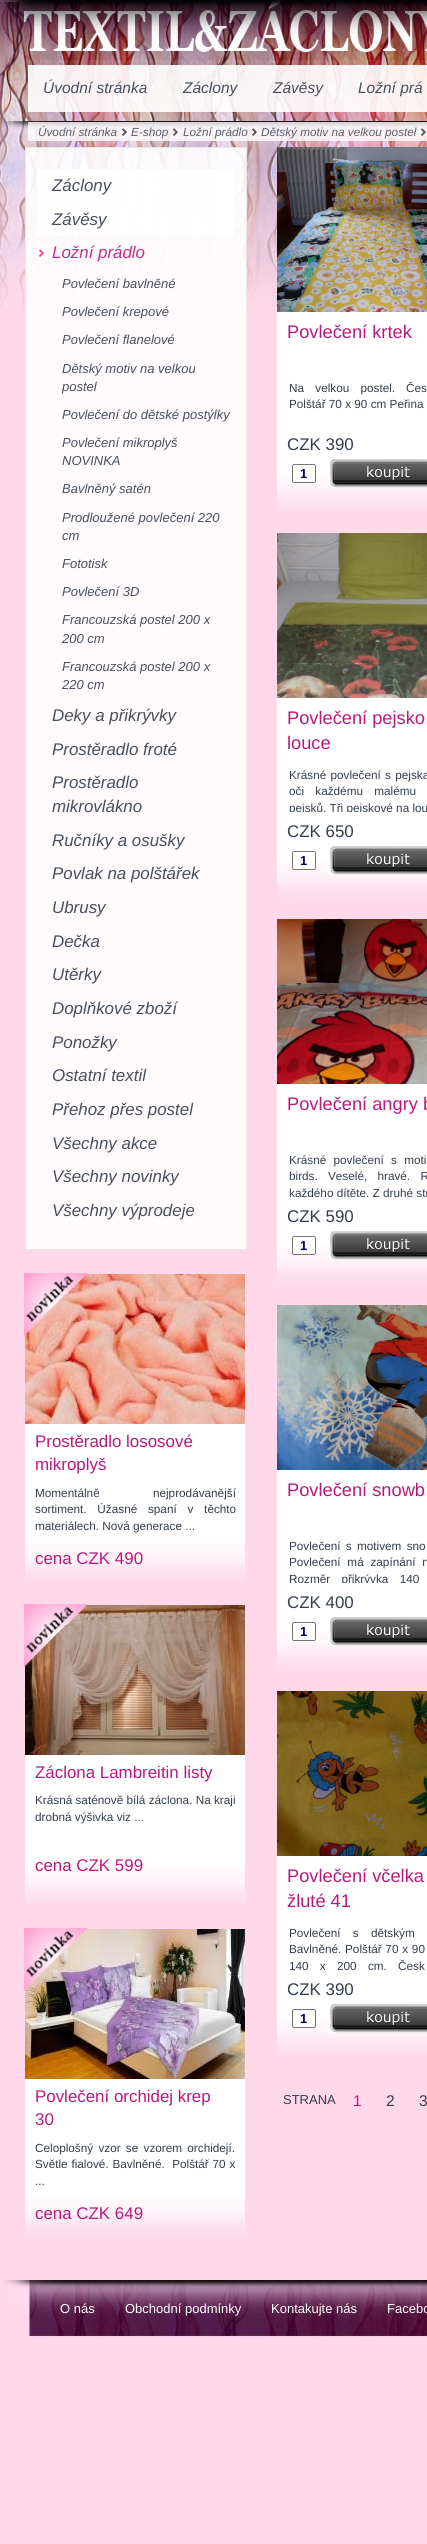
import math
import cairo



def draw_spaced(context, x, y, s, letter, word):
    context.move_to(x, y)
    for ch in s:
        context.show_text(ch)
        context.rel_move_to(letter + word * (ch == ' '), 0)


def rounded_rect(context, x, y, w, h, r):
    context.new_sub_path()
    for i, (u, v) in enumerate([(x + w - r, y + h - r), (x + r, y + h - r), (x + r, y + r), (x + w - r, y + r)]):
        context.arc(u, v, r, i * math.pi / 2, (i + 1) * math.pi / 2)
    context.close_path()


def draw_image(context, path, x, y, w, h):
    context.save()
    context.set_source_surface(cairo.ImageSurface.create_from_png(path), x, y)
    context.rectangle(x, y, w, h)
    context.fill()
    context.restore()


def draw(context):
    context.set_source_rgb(1, 216 / 255, 234 / 255)
    context.paint()
    draw_image(context, "images/1.png", 0, 312, 277, 1)
    draw_image(context, "images/2.png", 0, 122, 427, 190)
    draw_image(context, "images/3.png", 0, 0, 427, 122)
    draw_image(context, "images/4.png", 24, 0, 403, 60)
    context.set_source_rgba(1, 1, 1, 0.9)
    context.rectangle(28, 65, 399, 47)
    context.fill()
    context.set_source_rgba(1, 1, 1, 0.8)
    context.rectangle(28, 122, 399, 19)
    context.fill()
    draw_image(context, "images/5.png", 122, 128, 5, 8)
    draw_image(context, "images/6.png", 173, 128, 5, 8)
    draw_image(context, "images/7.png", 252, 128, 5, 8)
    draw_image(context, "images/8.png", 421, 128, 5, 8)
    context.set_source_rgb(1, 1, 1)
    context.rectangle(277, 312, 150, 162)
    context.fill()
    draw_image(context, "images/9.png", 277, 474, 150, 38)
    draw_image(context, "images/10.png", 277, 147, 150, 165)
    rounded_rect(context, 292.5, 464.5, 23, 18, 1.5)
    context.fill_preserve()
    context.set_source_rgb(118 / 255, 118 / 255, 118 / 255)
    context.set_line_width(1)
    context.stroke()
    context.set_source_rgb(1, 1, 1)
    context.rectangle(329, 474, 98, 14)
    context.fill()
    draw_image(context, "images/11.png", 330, 459, 97, 29)
    context.rectangle(277, 698, 150, 162)
    context.fill()
    draw_image(context, "images/9.png", 277, 860, 150, 38)
    draw_image(context, "images/12.png", 277, 533, 150, 165)
    rounded_rect(context, 292.5, 851.5, 23, 18, 1.5)
    context.fill_preserve()
    context.set_source_rgb(118 / 255, 118 / 255, 118 / 255)
    context.stroke()
    context.set_source_rgb(1, 1, 1)
    context.rectangle(329, 860, 98, 15)
    context.fill()
    draw_image(context, "images/11.png", 330, 846, 97, 29)
    context.rectangle(277, 1084, 150, 162)
    context.fill()
    draw_image(context, "images/9.png", 277, 1246, 150, 38)
    draw_image(context, "images/13.png", 277, 919, 150, 165)
    rounded_rect(context, 292.5, 1236.5, 23, 18, 1.5)
    context.fill_preserve()
    context.set_source_rgb(118 / 255, 118 / 255, 118 / 255)
    context.stroke()
    context.set_source_rgb(1, 1, 1)
    context.rectangle(329, 1246, 98, 14)
    context.fill()
    draw_image(context, "images/11.png", 330, 1231, 97, 29)
    context.rectangle(277, 1470, 150, 162)
    context.fill()
    draw_image(context, "images/9.png", 277, 1632, 150, 38)
    draw_image(context, "images/14.png", 277, 1305, 150, 165)
    rounded_rect(context, 292.5, 1622.5, 23, 18, 1.5)
    context.fill_preserve()
    context.set_source_rgb(118 / 255, 118 / 255, 118 / 255)
    context.stroke()
    context.set_source_rgb(1, 1, 1)
    context.rectangle(329, 1632, 98, 14)
    context.fill()
    draw_image(context, "images/11.png", 330, 1617, 97, 29)
    context.rectangle(277, 1856, 150, 162)
    context.fill()
    draw_image(context, "images/9.png", 277, 2018, 150, 38)
    draw_image(context, "images/15.png", 277, 1691, 150, 165)
    rounded_rect(context, 292.5, 2009.5, 23, 18, 1.5)
    context.fill_preserve()
    context.set_source_rgb(118 / 255, 118 / 255, 118 / 255)
    context.stroke()
    context.set_source_rgb(1, 1, 1)
    context.rectangle(329, 2018, 98, 15)
    context.fill()
    draw_image(context, "images/11.png", 330, 2004, 97, 29)
    context.set_source_rgba(1, 1, 1, 0.9)
    context.rectangle(25, 147, 222, 1103)
    context.fill()
    context.rectangle(25.5, 147.5, 221, 1102)
    context.set_source_rgba(233 / 255, 229 / 255, 225 / 255, 0.9)
    context.stroke()
    context.set_source_rgba(1, 1, 1, 0.9)
    context.rectangle(37, 169, 198, 34)
    context.fill()
    context.rectangle(37, 203, 198, 33)
    context.fill()
    draw_image(context, "images/16.png", 37, 247, 11, 12)
    context.set_source_rgb(1, 1, 1)
    context.rectangle(25, 1424, 220, 119)
    context.fill()
    draw_image(context, "images/17.png", 25, 1543, 220, 38)
    draw_image(context, "images/20.png", 25, 1274, 220, 150)
    draw_image(context, "images/18.png", 24, 1273, 64, 63)
    draw_image(context, "images/19.png", 24, 1273, 64, 63)
    context.rectangle(25, 1755, 220, 112)
    context.fill()
    draw_image(context, "images/17.png", 25, 1867, 220, 38)
    draw_image(context, "images/23.png", 25, 1605, 220, 150)
    draw_image(context, "images/21.png", 24, 1604, 64, 63)
    draw_image(context, "images/22.png", 24, 1604, 64, 63)
    context.rectangle(25, 2079, 220, 119)
    context.fill()
    draw_image(context, "images/17.png", 25, 2198, 220, 38)
    draw_image(context, "images/26.png", 25, 1929, 220, 150)
    draw_image(context, "images/24.png", 24, 1928, 64, 63)
    draw_image(context, "images/25.png", 24, 1928, 64, 63)
    draw_image(context, "images/27.png", 3, 2280, 424, 59)
    context.select_font_face("Liberation Sans", cairo.FontSlant.ITALIC)
    context.set_font_size(15.5)
    context.set_source_rgb(72 / 255, 80 / 255, 94 / 255)
    context.move_to(43, 93)
    context.show_text("Úvodní stránka")
    context.move_to(183, 93)
    context.show_text("Záclony")
    context.move_to(273, 93)
    context.show_text("Závěsy")
    context.move_to(358, 93)
    context.show_text("Ložní prá")
    context.set_font_size(11.75)
    context.set_source_rgb(91 / 255, 97 / 255, 110 / 255)
    context.move_to(38, 136)
    context.show_text("Úvodní stránka")
    context.move_to(131, 136)
    context.show_text("E-shop")
    context.move_to(183, 136)
    context.show_text("Ložní prádlo")
    context.move_to(261, 136)
    context.show_text("Dětský motiv na velkou postel")
    context.select_font_face("Liberation Sans")
    context.set_font_size(18.25)
    context.set_source_rgb(185 / 255, 25 / 255, 126 / 255)
    context.move_to(287, 338)
    context.show_text("Povlečení krtek")
    context.set_font_size(11.75)
    context.set_source_rgb(52 / 255, 61 / 255, 76 / 255)
    draw_spaced(context, 289, 392, "Na velkou postel.", 0, 8)
    draw_spaced(context, 406, 392, "Čes", 0, 8)
    context.move_to(289, 408)
    context.show_text("Polštář 70 x 90 cm Peřina")
    context.set_font_size(16.9)
    context.move_to(287, 450)
    context.show_text("CZK 390")
    context.select_font_face("Liberation Sans", cairo.FontSlant.NORMAL, cairo.FontWeight.BOLD)
    context.set_font_size(13)
    context.set_source_rgb(0, 0, 102 / 255)
    context.move_to(300, 478)
    context.show_text("1")
    context.select_font_face("Liberation Sans")
    context.set_font_size(18.25)
    context.set_source_rgb(185 / 255, 25 / 255, 126 / 255)
    context.move_to(287, 724)
    context.show_text("Povlečení pejsko")
    context.move_to(287, 749)
    context.show_text("louce")
    context.set_font_size(11.75)
    context.set_source_rgb(52 / 255, 61 / 255, 76 / 255)
    draw_spaced(context, 289, 779, "Krásné povlečení s pejska", 0, 1)
    draw_spaced(context, 289, 795, "oči každému malému", 0, 8)
    context.save()
    context.rectangle(282, 767, 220, 45)
    context.clip()
    context.move_to(289, 812)
    context.show_text("pejsků. Tři pejskové na lou")
    context.restore()
    context.set_font_size(16.9)
    context.move_to(287, 837)
    context.show_text("CZK 650")
    context.select_font_face("Liberation Sans", cairo.FontSlant.NORMAL, cairo.FontWeight.BOLD)
    context.set_font_size(13)
    context.set_source_rgb(0, 0, 102 / 255)
    context.move_to(300, 865)
    context.show_text("1")
    context.select_font_face("Liberation Sans")
    context.set_font_size(18.25)
    context.set_source_rgb(185 / 255, 25 / 255, 126 / 255)
    context.move_to(287, 1110)
    context.show_text("Povlečení angry b")
    context.set_font_size(11.75)
    context.set_source_rgb(52 / 255, 61 / 255, 76 / 255)
    draw_spaced(context, 289, 1164, "Krásné povlečení s moti", 0, 4)
    draw_spaced(context, 289, 1180, "birds. Veselé, hravé. R", 0, 7)
    context.save()
    context.rectangle(282, 1152, 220, 45)
    context.clip()
    context.move_to(289, 1197)
    context.show_text("každého dítěte. Z druhé str")
    context.restore()
    context.set_font_size(16.9)
    context.move_to(287, 1222)
    context.show_text("CZK 590")
    context.select_font_face("Liberation Sans", cairo.FontSlant.NORMAL, cairo.FontWeight.BOLD)
    context.set_font_size(13)
    context.set_source_rgb(0, 0, 102 / 255)
    context.move_to(300, 1250)
    context.show_text("1")
    context.select_font_face("Liberation Sans")
    context.set_font_size(18.25)
    context.set_source_rgb(185 / 255, 25 / 255, 126 / 255)
    context.move_to(287, 1496)
    context.show_text("Povlečení snowb")
    context.set_font_size(11.75)
    context.set_source_rgb(52 / 255, 61 / 255, 76 / 255)
    draw_spaced(context, 289, 1550, "Povlečení s motivem sno", 0, 2)
    draw_spaced(context, 289, 1566, "Povlečení má zapínání n", 0, 3.5)
    context.save()
    context.rectangle(282, 1538, 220, 45)
    context.clip()
    draw_spaced(context, 289, 1583, "Rozměr přikrývka 140", 0, 8)
    context.restore()
    context.set_font_size(16.9)
    context.move_to(287, 1608)
    context.show_text("CZK 400")
    context.select_font_face("Liberation Sans", cairo.FontSlant.NORMAL, cairo.FontWeight.BOLD)
    context.set_font_size(13)
    context.set_source_rgb(0, 0, 102 / 255)
    context.move_to(300, 1636)
    context.show_text("1")
    context.select_font_face("Liberation Sans")
    context.set_font_size(18.25)
    context.set_source_rgb(185 / 255, 25 / 255, 126 / 255)
    context.move_to(287, 1882)
    context.show_text("Povlečení včelka")
    context.move_to(287, 1907)
    context.show_text("žluté 41")
    context.set_font_size(11.75)
    context.set_source_rgb(52 / 255, 61 / 255, 76 / 255)
    draw_spaced(context, 289, 1937, "Povlečení s dětským", 0, 9)
    draw_spaced(context, 289, 1953, "Bavlněné. Polštář 70 x 90", 0, 0.5)
    draw_spaced(context, 289, 1970, "140 x 200 cm. Česk", 0, 8)
    context.set_font_size(16.9)
    context.move_to(287, 1995)
    context.show_text("CZK 390")
    context.select_font_face("Liberation Sans", cairo.FontSlant.NORMAL, cairo.FontWeight.BOLD)
    context.set_font_size(13)
    context.set_source_rgb(0, 0, 102 / 255)
    context.move_to(300, 2023)
    context.show_text("1")
    context.select_font_face("Liberation Sans")
    context.set_source_rgb(52 / 255, 61 / 255, 76 / 255)
    context.move_to(283, 2104)
    context.show_text("STRANA")
    context.set_font_size(15.5)
    context.set_source_rgb(185 / 255, 25 / 255, 126 / 255)
    context.move_to(353, 2106)
    context.show_text("1")
    context.set_source_rgb(52 / 255, 61 / 255, 76 / 255)
    context.move_to(386, 2106)
    context.show_text("2")
    context.move_to(419, 2106)
    context.show_text("3")
    context.select_font_face("Liberation Sans", cairo.FontSlant.ITALIC)
    context.set_font_size(16.9)
    context.set_source_rgb(72 / 255, 80 / 255, 94 / 255)
    context.move_to(52, 191)
    context.show_text("Záclony")
    context.move_to(52, 225)
    context.show_text("Závěsy")
    context.set_source_rgb(192 / 255, 47 / 255, 139 / 255)
    context.move_to(52, 258)
    context.show_text("Ložní prádlo")
    context.set_font_size(13)
    context.set_source_rgb(72 / 255, 80 / 255, 94 / 255)
    context.move_to(62, 288)
    context.show_text("Povlečení bavlněné")
    context.move_to(62, 316)
    context.show_text("Povlečení krepové")
    context.move_to(62, 344)
    context.show_text("Povlečení flanelové")
    context.move_to(62, 373)
    context.show_text("Dětský motiv na velkou")
    context.move_to(62, 391)
    context.show_text("postel")
    context.move_to(62, 419)
    context.show_text("Povlečení do dětské postýlky")
    context.move_to(62, 447)
    context.show_text("Povlečení mikroplyš")
    context.move_to(62, 465)
    context.show_text("NOVINKA")
    context.move_to(62, 493)
    context.show_text("Bavlněný satén")
    context.move_to(62, 522)
    context.show_text("Prodloužené povlečení 220")
    context.move_to(62, 540)
    context.show_text("cm")
    context.move_to(62, 568)
    context.show_text("Fototisk")
    context.move_to(62, 596)
    context.show_text("Povlečení 3D")
    context.move_to(62, 624)
    context.show_text("Francouzská postel 200 x")
    context.move_to(62, 643)
    context.show_text("200 cm")
    context.move_to(62, 671)
    context.show_text("Francouzská postel 200 x")
    context.move_to(62, 689)
    context.show_text("220 cm")
    context.set_font_size(16.9)
    context.move_to(52, 721)
    context.show_text("Deky a přikrývky")
    context.move_to(52, 755)
    context.show_text("Prostěradlo froté")
    context.move_to(52, 788)
    context.show_text("Prostěradlo")
    context.move_to(52, 812)
    context.show_text("mikrovlákno")
    context.move_to(52, 846)
    context.show_text("Ručníky a osušky")
    context.move_to(52, 879)
    context.show_text("Povlak na polštářek")
    context.move_to(52, 913)
    context.show_text("Ubrusy")
    context.move_to(52, 947)
    context.show_text("Dečka")
    context.move_to(52, 980)
    context.show_text("Utěrky")
    context.move_to(52, 1014)
    context.show_text("Doplňkové zboží")
    context.move_to(52, 1048)
    context.show_text("Ponožky")
    context.move_to(52, 1081)
    context.show_text("Ostatní textil")
    context.move_to(52, 1115)
    context.show_text("Přehoz přes postel")
    context.move_to(52, 1149)
    context.show_text("Všechny akce")
    context.move_to(52, 1182)
    context.show_text("Všechny novinky")
    context.move_to(52, 1216)
    context.show_text("Všechny výprodeje")
    context.select_font_face("Liberation Sans")
    context.set_source_rgb(185 / 255, 25 / 255, 126 / 255)
    context.move_to(35, 1447)
    context.show_text("Prostěradlo lososové")
    context.move_to(35, 1470)
    context.show_text("mikroplyš")
    context.set_font_size(11.75)
    context.set_source_rgb(52 / 255, 61 / 255, 76 / 255)
    draw_spaced(context, 35, 1497, "Momentálně nejprodávanější", 0, 50)
    draw_spaced(context, 35, 1513, "sortiment. Úžasné spaní v těchto", 0, 7.5)
    context.move_to(35, 1530)
    context.show_text("materiálech. Nová generace ...")
    context.set_font_size(16.9)
    context.set_source_rgb(185 / 255, 25 / 255, 126 / 255)
    context.move_to(35, 1564)
    context.show_text("cena CZK 490")
    context.move_to(35, 1778)
    context.show_text("Záclona Lambreitin listy")
    context.set_font_size(11.75)
    context.set_source_rgb(52 / 255, 61 / 255, 76 / 255)
    context.move_to(35, 1804)
    context.show_text("Krásná saténově bílá záclona. Na kraji")
    context.move_to(35, 1821)
    context.show_text("drobná výšivka viz ...")
    context.set_font_size(16.9)
    context.set_source_rgb(185 / 255, 25 / 255, 126 / 255)
    context.move_to(35, 1871)
    context.show_text("cena CZK 599")
    context.move_to(35, 2102)
    context.show_text("Povlečení orchidej krep")
    context.move_to(35, 2125)
    context.show_text("30")
    context.set_font_size(11.75)
    context.set_source_rgb(52 / 255, 61 / 255, 76 / 255)
    draw_spaced(context, 35, 2152, "Celoplošný vzor se vzorem orchidejí.", 0, 2)
    draw_spaced(context, 35, 2168, "Světle fialové. Bavlněné.  Polštář 70 x", 0, 0.5)
    context.move_to(35, 2185)
    context.show_text("...")
    context.set_font_size(16.9)
    context.set_source_rgb(185 / 255, 25 / 255, 126 / 255)
    context.move_to(35, 2219)
    context.show_text("cena CZK 649")
    context.set_font_size(13)
    context.set_source_rgb(1, 1, 1)
    context.move_to(60, 2313)
    context.show_text("O nás")
    context.move_to(125, 2313)
    context.show_text("Obchodní podmínky")
    context.move_to(271, 2313)
    context.show_text("Kontakujte nás")
    context.move_to(387, 2313)
    context.show_text("Facebo")


surface = cairo.ImageSurface(cairo.Format.RGB24, 427, 2544)
context = cairo.Context(surface)
options = cairo.FontOptions()
options.set_hint_metrics(cairo.HintMetrics.OFF)
options.set_hint_style(cairo.HintStyle.NONE)
context.set_font_options(options)
context.set_miter_limit(4)
draw(context)
surface.write_to_png("out.png")
